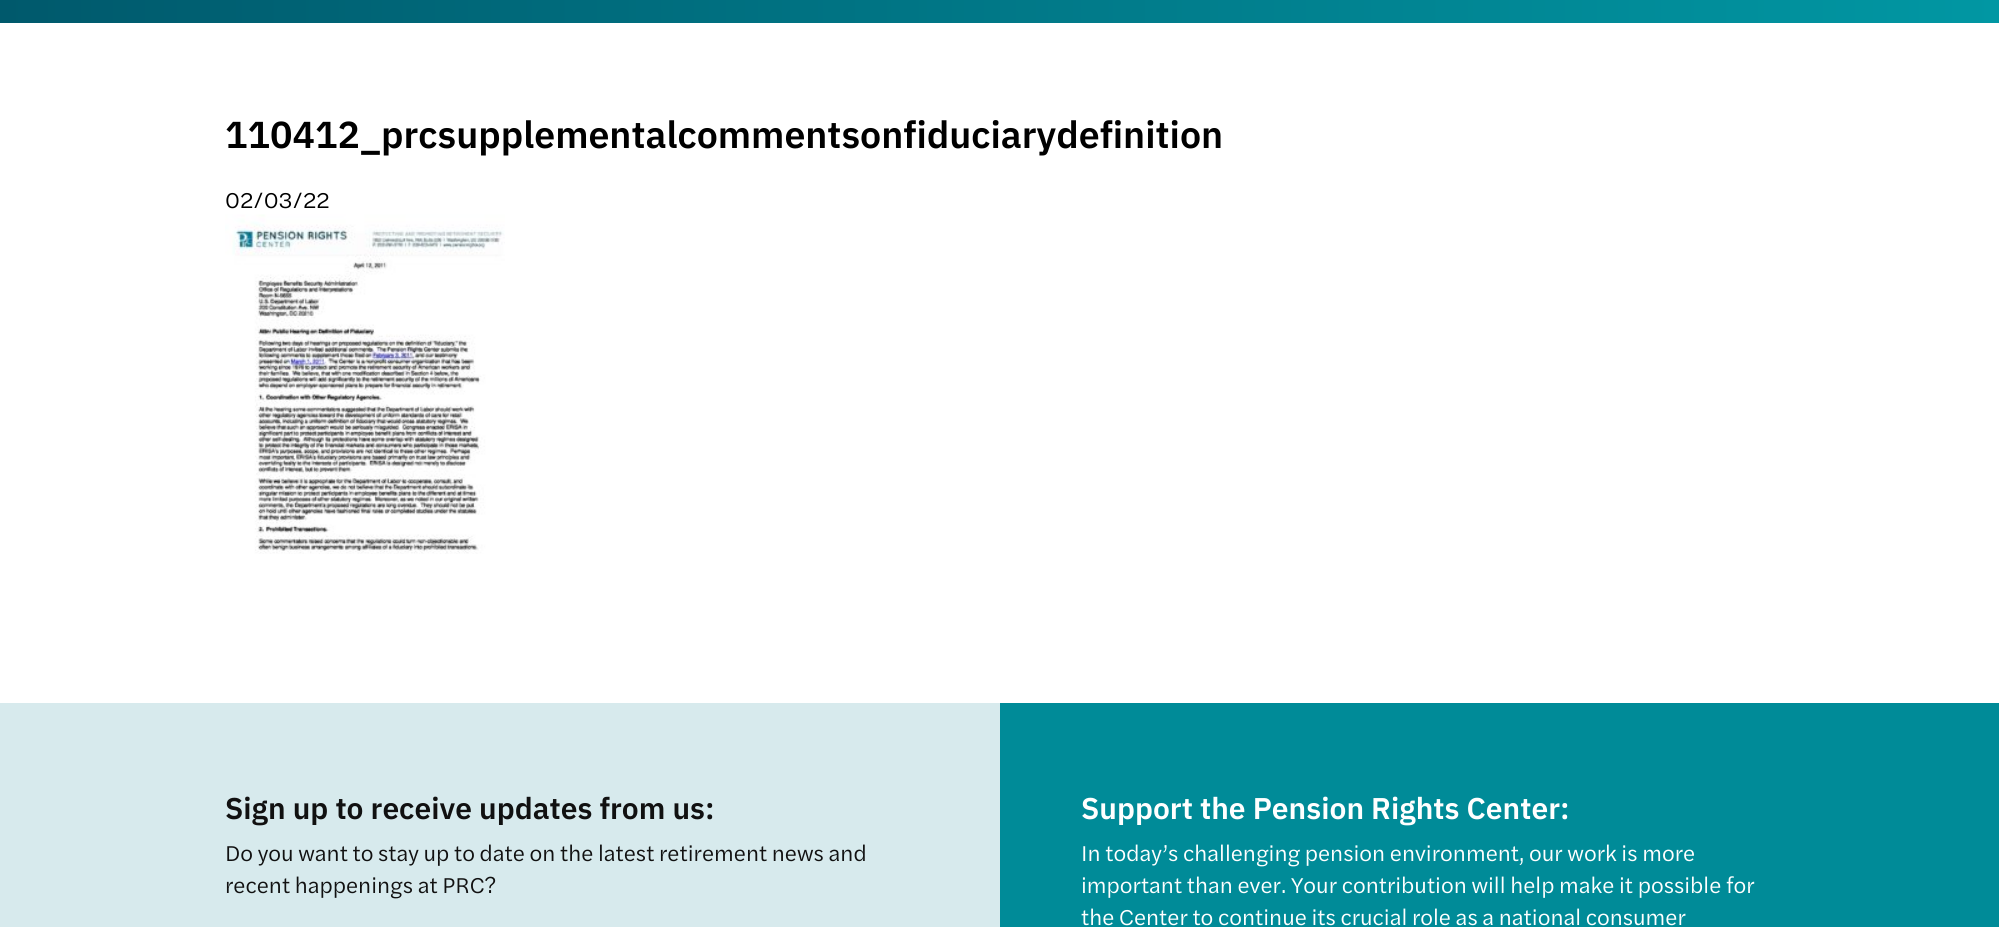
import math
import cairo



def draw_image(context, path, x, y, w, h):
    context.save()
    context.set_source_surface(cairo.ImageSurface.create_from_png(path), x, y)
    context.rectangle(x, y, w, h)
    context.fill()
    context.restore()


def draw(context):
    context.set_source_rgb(1, 1, 1)
    context.paint()
    gradient = cairo.LinearGradient(0, -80, 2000, -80)
    gradient.add_color_stop_rgba(0, 0, 89 / 255, 108 / 255, 1)
    gradient.add_color_stop_rgba(1, 1 / 255, 151 / 255, 163 / 255, 1)
    context.set_source(gradient)
    context.rectangle(0, 0, 1999, 23)
    context.fill()
    draw_image(context, "images/1.png", 225, 214, 280, 340)
    context.set_source_rgb(215 / 255, 234 / 255, 237 / 255)
    context.rectangle(0, 703, 1000, 224)
    context.fill()
    context.set_source_rgb(0, 139 / 255, 152 / 255)
    context.rectangle(1000, 703, 999, 224)
    context.fill()
    context.select_font_face("IBM Plex Sans SemiBold")
    context.set_font_size(37.5)
    context.set_source_rgb(0, 0, 0)
    context.move_to(225, 148)
    context.show_text("110412_prcsupplementalcommentsonfiduciarydefinition")
    context.select_font_face("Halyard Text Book")
    context.set_font_size(22.5)
    context.move_to(225, 208)
    context.show_text("02/03/22")
    context.select_font_face("IBM Plex Sans SemiBold")
    context.set_font_size(30)
    context.set_source_rgb(17 / 255, 17 / 255, 17 / 255)
    context.move_to(225, 819)
    context.show_text("Sign up to receive updates from us:")
    context.select_font_face("Halyard Text Book")
    context.set_font_size(22.5)
    context.move_to(225, 861)
    context.show_text("Do you want to stay up to date on the latest retirement news and")
    context.move_to(225, 893)
    context.show_text("recent happenings at PRC?")
    context.select_font_face("IBM Plex Sans SemiBold")
    context.set_font_size(30)
    context.set_source_rgb(1, 1, 1)
    context.move_to(1081, 819)
    context.show_text("Support the Pension Rights Center:")
    context.select_font_face("Halyard Text Book")
    context.set_font_size(22.5)
    context.move_to(1081, 861)
    context.show_text("In today’s challenging pension environment, our work is more")
    context.move_to(1081, 893)
    context.show_text("important than ever. Your contribution will help make it possible for")
    context.move_to(1081, 925)
    context.show_text("the Center to continue its crucial role as a national consumer")


surface = cairo.ImageSurface(cairo.Format.RGB24, 1999, 927)
context = cairo.Context(surface)
options = cairo.FontOptions()
options.set_hint_metrics(cairo.HintMetrics.OFF)
options.set_hint_style(cairo.HintStyle.NONE)
context.set_font_options(options)
context.set_miter_limit(4)
draw(context)
surface.write_to_png("out.png")
